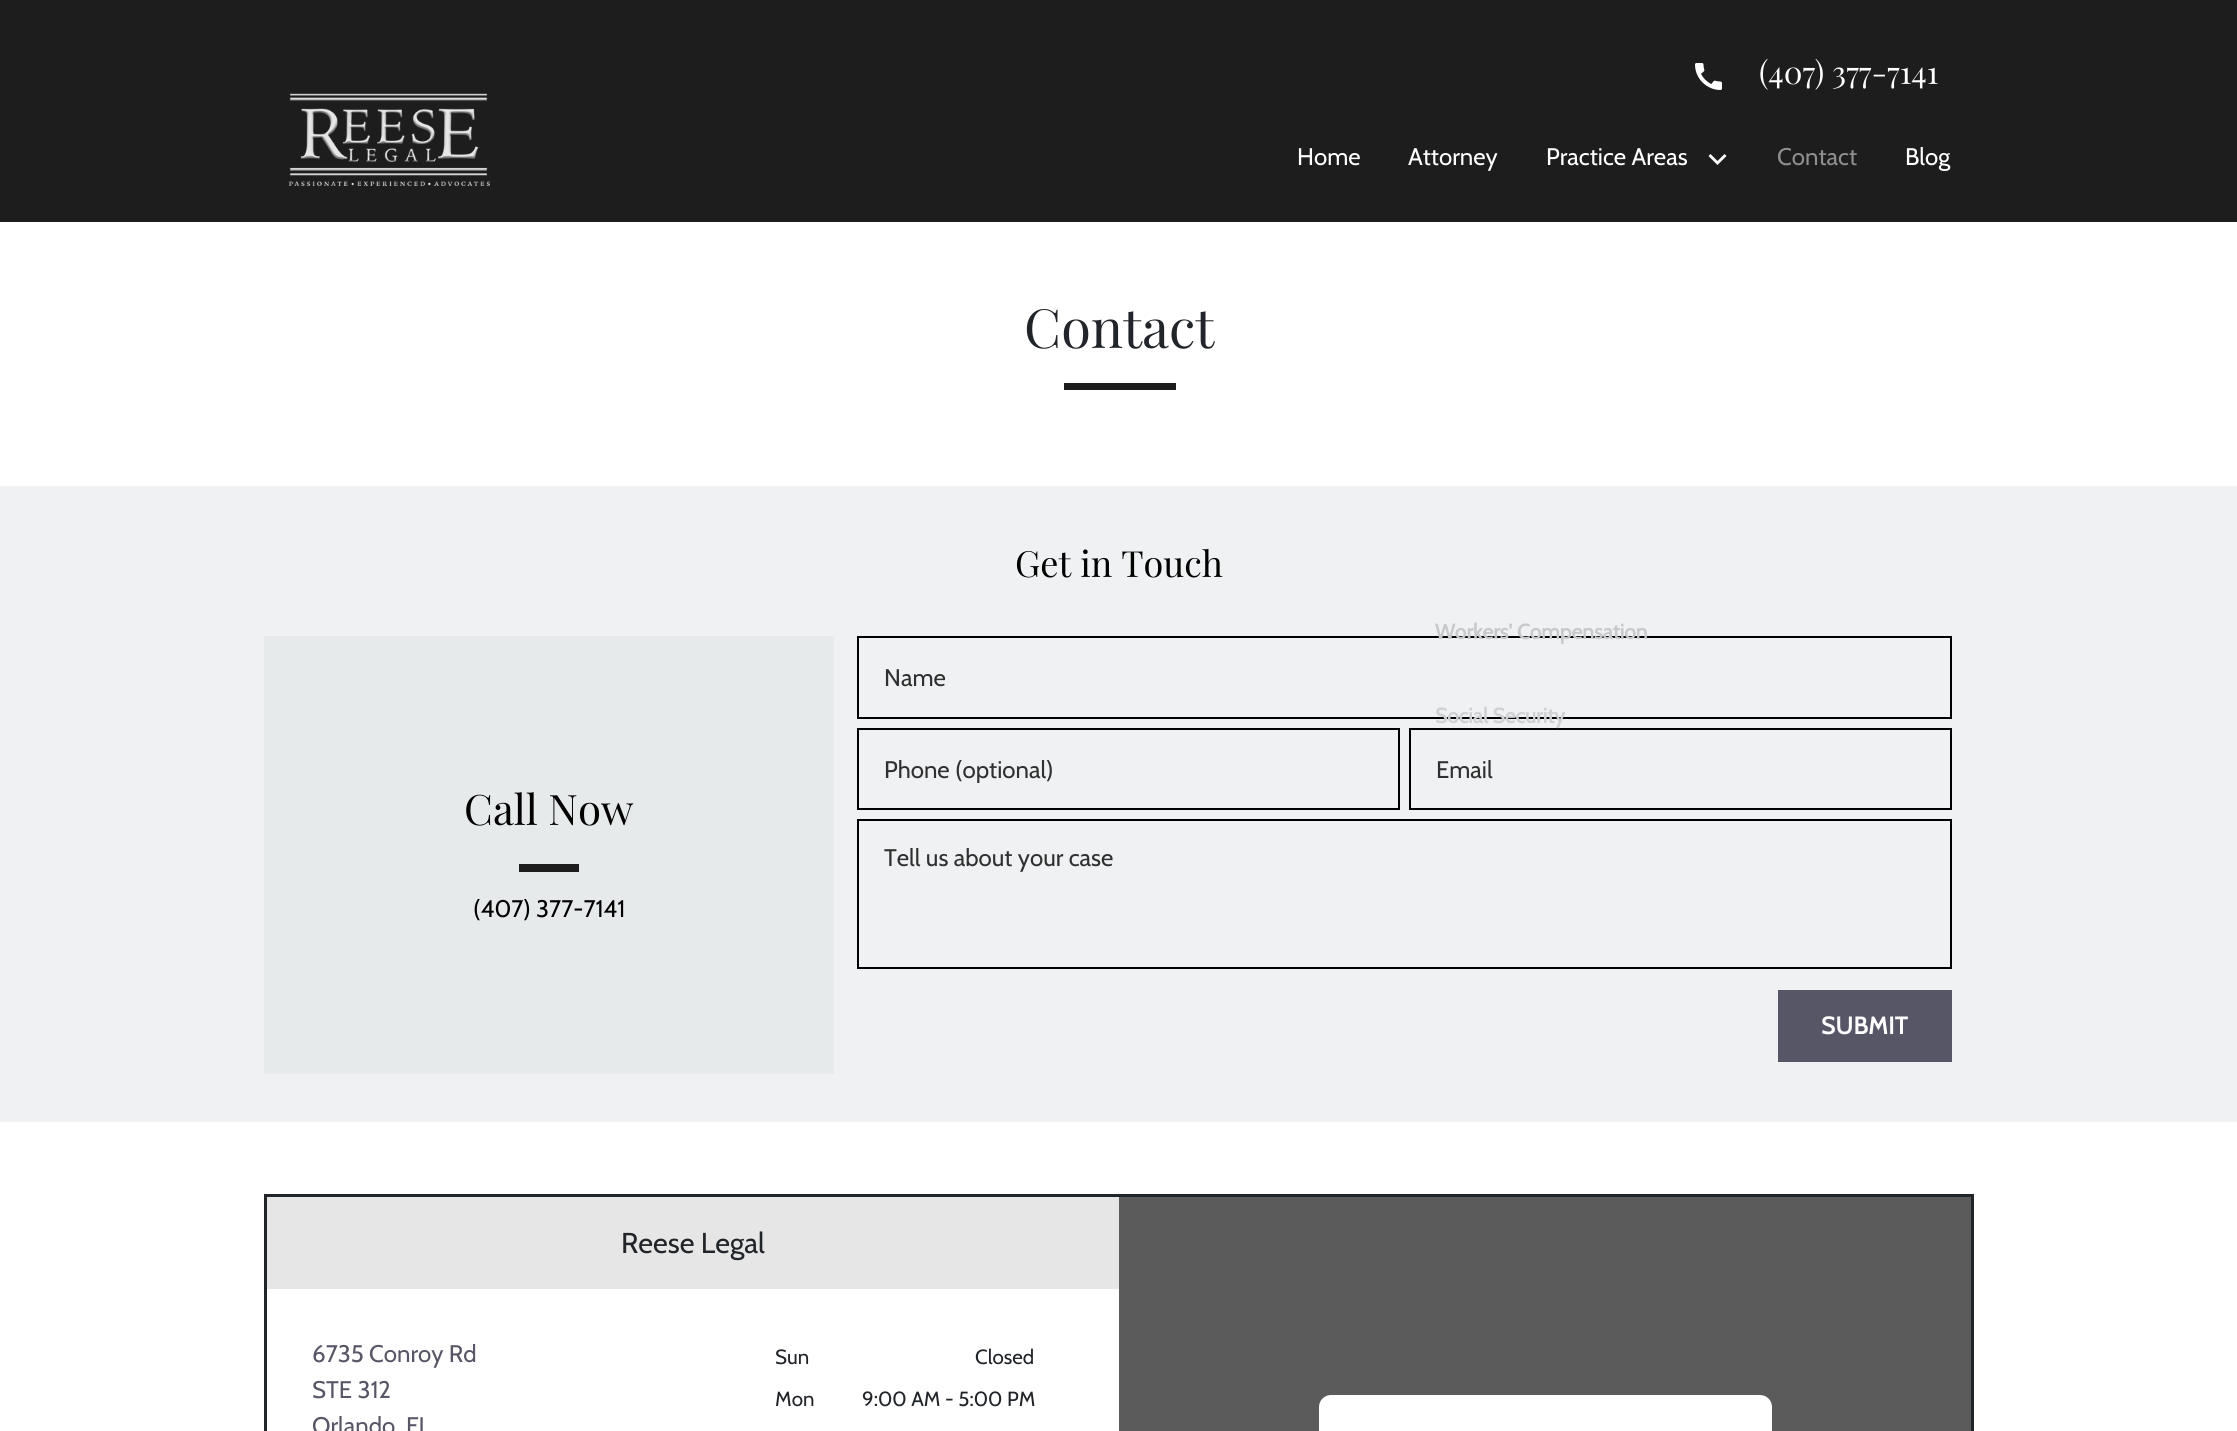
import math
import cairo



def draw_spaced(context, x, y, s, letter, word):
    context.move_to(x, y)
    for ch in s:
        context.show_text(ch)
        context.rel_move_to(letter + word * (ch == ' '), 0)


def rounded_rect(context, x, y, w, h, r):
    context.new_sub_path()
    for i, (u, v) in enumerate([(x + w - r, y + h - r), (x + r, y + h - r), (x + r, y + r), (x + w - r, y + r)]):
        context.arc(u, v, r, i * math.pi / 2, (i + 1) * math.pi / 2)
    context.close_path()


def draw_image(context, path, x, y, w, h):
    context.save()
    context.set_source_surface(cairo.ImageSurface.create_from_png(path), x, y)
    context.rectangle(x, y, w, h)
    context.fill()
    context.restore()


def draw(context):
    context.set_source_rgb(1, 1, 1)
    context.paint()
    context.set_source_rgb(29 / 255, 29 / 255, 29 / 255)
    context.rectangle(0, 0, 2237, 222)
    context.fill()
    draw_image(context, "images/1.png", 289, 93, 201, 93)
    draw_image(context, "images/2.png", 1695, 63, 27, 27)
    context.set_source_rgb(1, 1, 1)
    context.new_path()
    context.move_to(1724.5, 154)
    context.line_to(1717.5, 161)
    context.line_to(1710.5, 154)
    context.line_to(1708.5, 156)
    context.line_to(1717.5, 165)
    context.line_to(1726.5, 156)
    context.close_path()
    context.fill()
    context.set_source_rgb(29 / 255, 29 / 255, 29 / 255)
    context.rectangle(1064, 383, 112, 7)
    context.fill()
    context.set_source_rgb(239 / 255, 241 / 255, 242 / 255)
    context.rectangle(0, 486, 2237, 636)
    context.fill()
    context.set_source_rgb(231 / 255, 234 / 255, 235 / 255)
    context.rectangle(264, 636, 570, 438)
    context.fill()
    context.set_source_rgb(29 / 255, 29 / 255, 29 / 255)
    context.rectangle(519, 864, 60, 8)
    context.fill()
    context.rectangle(858, 637, 1093, 81)
    context.set_source_rgb(0, 0, 0)
    context.stroke()
    context.rectangle(858, 729, 541, 80)
    context.stroke()
    context.rectangle(1410, 729, 541, 80)
    context.stroke()
    context.rectangle(858, 820, 1093, 148)
    context.stroke()
    context.set_source_rgb(86 / 255, 86 / 255, 103 / 255)
    context.rectangle(1778, 990, 174, 72)
    context.fill()
    context.rectangle(265.5, 1195.5, 1707, 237)
    context.set_source_rgb(33 / 255, 37 / 255, 41 / 255)
    context.set_line_width(3)
    context.stroke()
    context.set_source_rgb(230 / 255, 230 / 255, 230 / 255)
    context.rectangle(267, 1197, 852, 92)
    context.fill()
    context.set_source_rgb(91 / 255, 91 / 255, 92 / 255)
    context.rectangle(1119, 1197, 852, 234)
    context.fill()
    context.set_source_rgb(1, 1, 1)
    rounded_rect(context, 1319, 1395, 453, 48, 12)
    context.fill()
    context.select_font_face("Playfair Display")
    context.set_font_size(31.25)
    context.move_to(1759, 84)
    context.show_text("(407) 377-7141")
    context.select_font_face("Cabin")
    context.set_font_size(24)
    context.move_to(1297, 165)
    context.show_text("Home")
    context.move_to(1408, 165)
    context.show_text("Attorney")
    context.set_source_rgb(142 / 255, 142 / 255, 142 / 255)
    context.move_to(1777, 165)
    context.show_text("Contact")
    context.set_source_rgb(1, 1, 1)
    context.move_to(1905, 165)
    context.show_text("Blog")
    context.move_to(1546, 165)
    context.show_text("Practice Areas")
    context.select_font_face("Cabin", cairo.FontSlant.NORMAL, cairo.FontWeight.BOLD)
    context.set_font_size(21)
    context.set_source_rgb(199 / 255, 201 / 255, 202 / 255)
    context.move_to(1435, 639)
    context.show_text("Workers' Compensation")
    context.set_source_rgb(207 / 255, 209 / 255, 210 / 255)
    context.move_to(1435, 723)
    context.show_text("Social Security")
    context.select_font_face("Playfair Display")
    context.set_font_size(54)
    context.set_source_rgb(33 / 255, 37 / 255, 41 / 255)
    context.move_to(1024, 348)
    context.show_text("Contact")
    context.set_font_size(36)
    context.set_source_rgb(0, 0, 0)
    context.move_to(1015, 577)
    context.show_text("Get in Touch")
    context.set_font_size(42)
    context.move_to(464, 825)
    context.show_text("Call Now")
    context.select_font_face("Cabin")
    context.set_font_size(24)
    context.move_to(473, 917)
    context.show_text("(407) 377-7141")
    context.set_source_rgb(48 / 255, 48 / 255, 48 / 255)
    context.move_to(884, 686)
    context.show_text("Name")
    context.save()
    context.rectangle(885, 755, 486, 28)
    context.clip()
    context.move_to(884, 778)
    context.show_text("Phone (optional)")
    context.restore()
    context.move_to(1436, 778)
    context.show_text("Email")
    context.move_to(884, 866)
    context.show_text("Tell us about your case")
    context.select_font_face("Cabin", cairo.FontSlant.NORMAL, cairo.FontWeight.BOLD)
    context.set_source_rgb(1, 1, 1)
    draw_spaced(context, 1821, 1034, "SUBMIT", 0.5, 0)
    context.select_font_face("Cabin")
    context.set_font_size(28.75)
    context.set_source_rgb(33 / 255, 37 / 255, 41 / 255)
    context.move_to(621, 1253)
    context.show_text("Reese Legal")
    context.set_font_size(24)
    context.set_source_rgb(86 / 255, 86 / 255, 103 / 255)
    context.move_to(312, 1362)
    context.show_text("6735 Conroy Rd")
    context.move_to(312, 1398)
    context.show_text("STE 312")
    context.move_to(312, 1434)
    context.show_text("Orlando")
    context.move_to(406, 1434)
    context.show_text("FL")
    context.set_font_size(20.5)
    context.set_source_rgb(33 / 255, 37 / 255, 41 / 255)
    context.move_to(775, 1364)
    context.show_text("Sun")
    context.move_to(975, 1364)
    context.show_text("Closed")
    context.move_to(775, 1406)
    context.show_text("Mon")
    context.move_to(862, 1406)
    context.show_text("9:00 AM - 5:00 PM")


surface = cairo.ImageSurface(cairo.Format.RGB24, 2237, 1431)
context = cairo.Context(surface)
options = cairo.FontOptions()
options.set_hint_metrics(cairo.HintMetrics.OFF)
options.set_hint_style(cairo.HintStyle.NONE)
context.set_font_options(options)
context.set_miter_limit(4)
draw(context)
surface.write_to_png("out.png")
